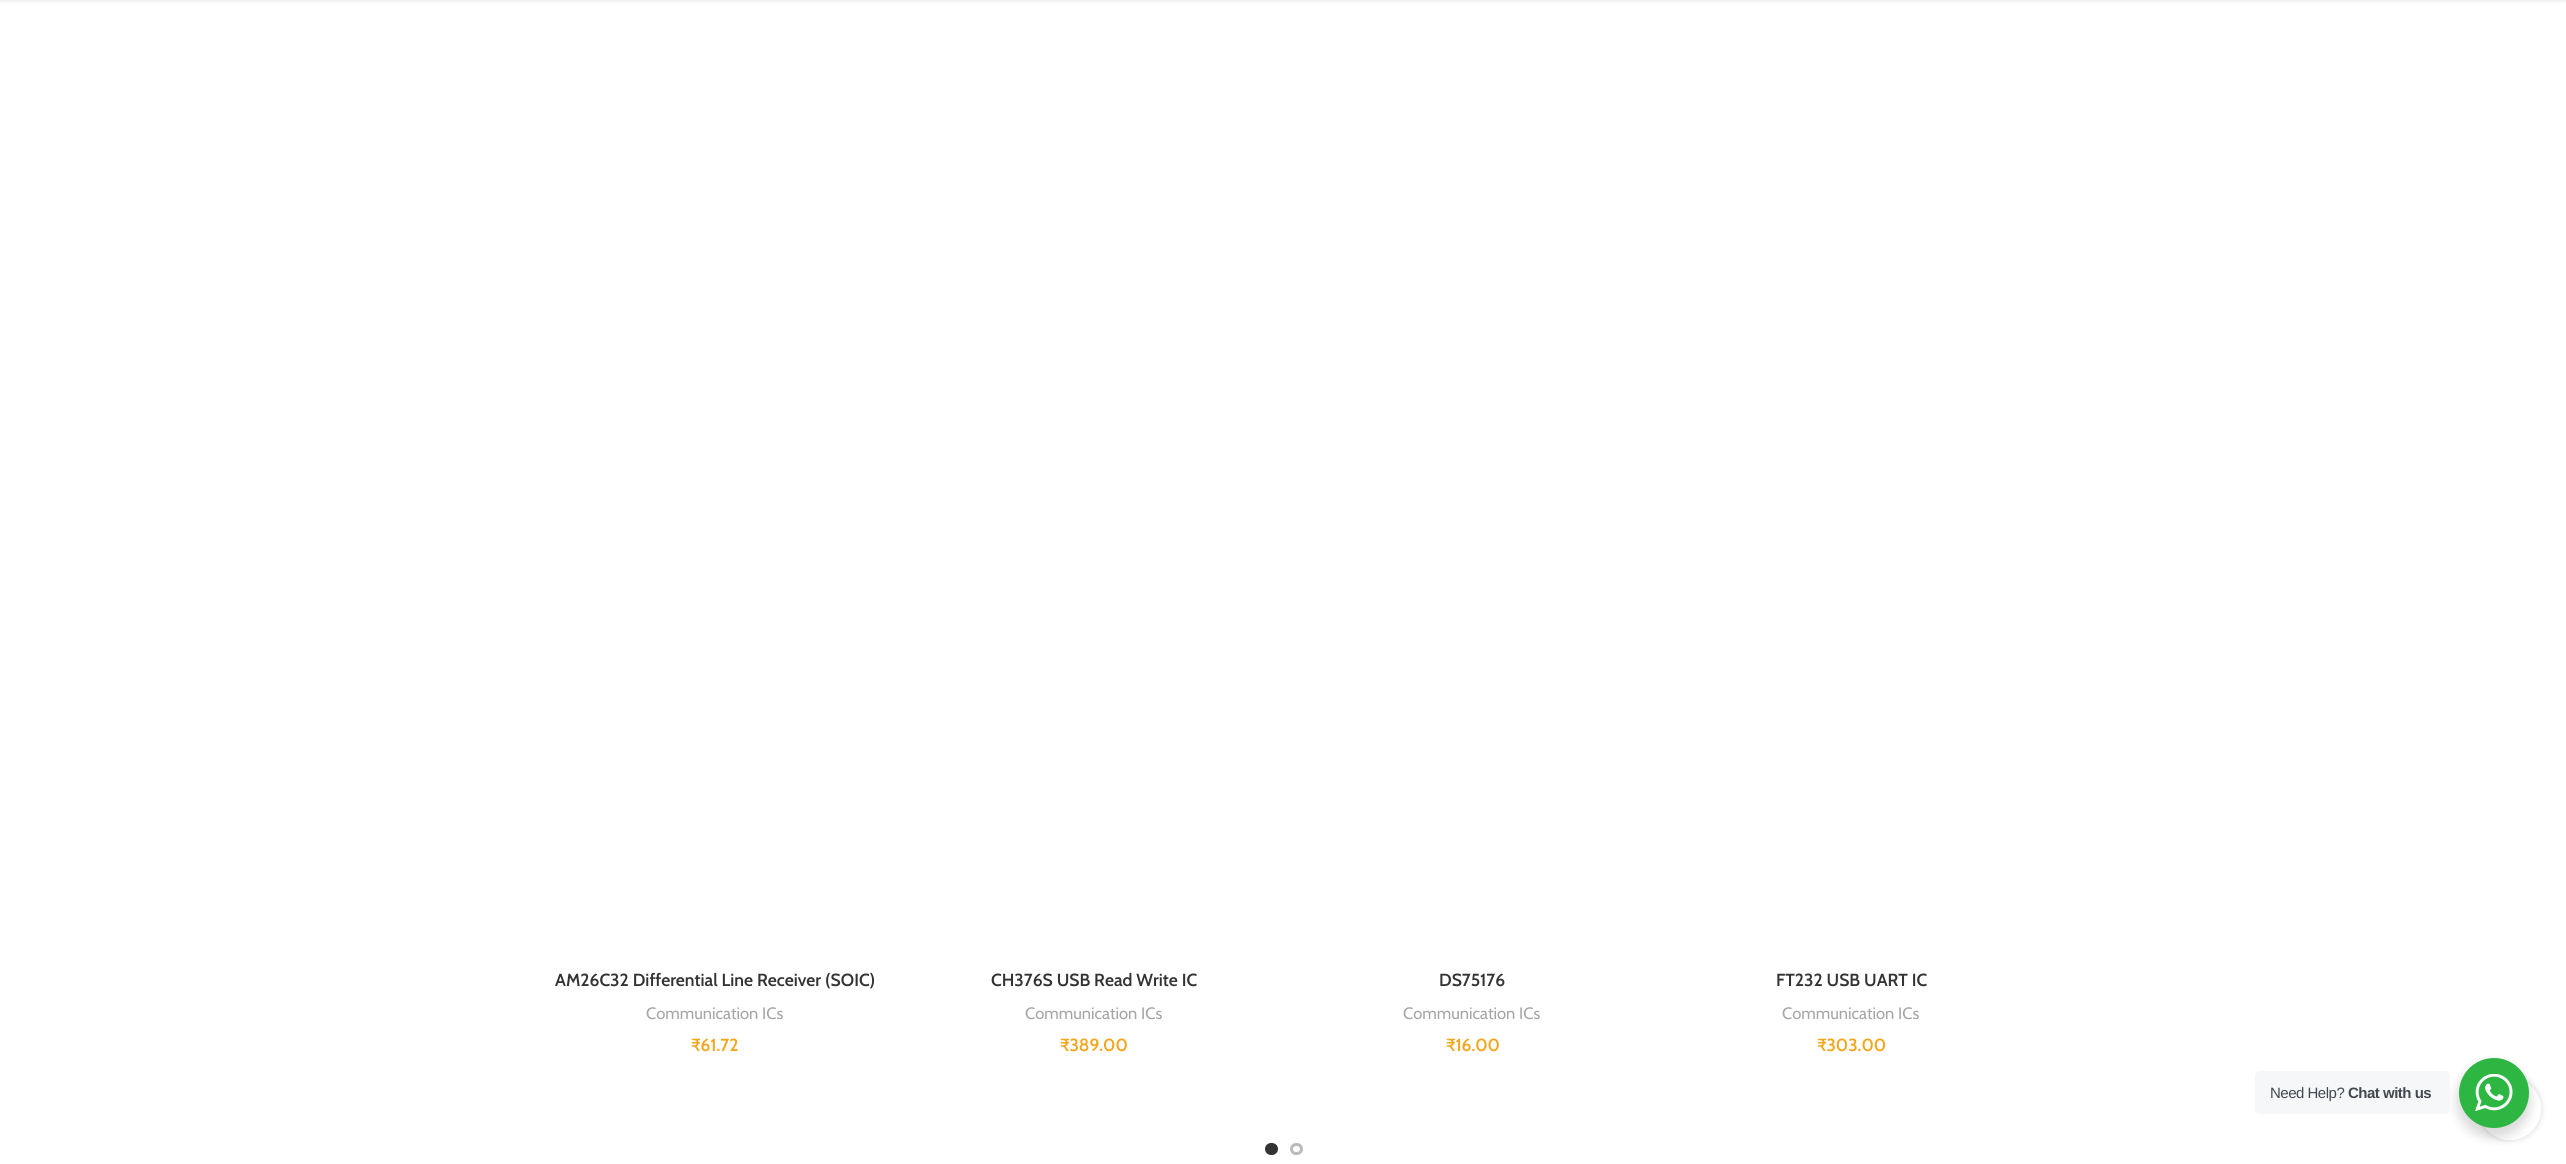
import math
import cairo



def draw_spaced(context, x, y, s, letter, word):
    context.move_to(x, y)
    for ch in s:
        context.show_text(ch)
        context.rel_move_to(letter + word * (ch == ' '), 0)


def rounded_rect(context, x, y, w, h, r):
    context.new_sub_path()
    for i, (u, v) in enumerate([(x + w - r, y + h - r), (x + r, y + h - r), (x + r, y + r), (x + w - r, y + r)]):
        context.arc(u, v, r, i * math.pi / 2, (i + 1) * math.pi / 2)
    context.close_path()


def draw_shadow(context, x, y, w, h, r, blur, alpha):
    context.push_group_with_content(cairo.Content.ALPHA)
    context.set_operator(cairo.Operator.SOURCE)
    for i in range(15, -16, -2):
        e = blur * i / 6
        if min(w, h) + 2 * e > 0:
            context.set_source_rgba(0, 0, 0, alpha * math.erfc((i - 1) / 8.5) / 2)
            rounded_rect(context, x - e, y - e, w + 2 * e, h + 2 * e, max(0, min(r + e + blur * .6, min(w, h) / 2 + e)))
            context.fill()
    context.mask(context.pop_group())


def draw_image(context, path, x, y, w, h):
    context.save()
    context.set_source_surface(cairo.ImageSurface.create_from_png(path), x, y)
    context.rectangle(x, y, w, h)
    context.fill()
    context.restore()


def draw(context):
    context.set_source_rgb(1, 1, 1)
    context.paint()
    context.set_source_rgb(0, 0, 0)
    draw_shadow(context, 0, -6, 2566, 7, 0, 2, 0.1)
    context.set_source_rgb(51 / 255, 51 / 255, 51 / 255)
    rounded_rect(context, 1266.5, 1144.5, 10, 9, 4.5)
    context.fill_preserve()
    context.set_line_width(3)
    context.stroke()
    rounded_rect(context, 1291.5, 1144.5, 10, 9, 4.5)
    context.set_source_rgb(187 / 255, 187 / 255, 187 / 255)
    context.stroke()
    context.save()
    context.set_fill_rule(cairo.FillRule.EVEN_ODD)
    context.new_path()
    context.move_to(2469, 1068)
    context.line_to(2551, 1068)
    context.line_to(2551, 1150)
    context.line_to(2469, 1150)
    context.close_path()
    context.move_to(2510, 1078)
    context.curve_to(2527, 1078, 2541, 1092, 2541, 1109)
    context.curve_to(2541, 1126, 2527, 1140, 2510, 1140)
    context.curve_to(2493, 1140, 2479, 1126, 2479, 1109)
    context.curve_to(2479, 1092, 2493, 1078, 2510, 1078)
    context.close_path()
    context.clip()
    context.set_source_rgb(0, 0, 0)
    draw_shadow(context, 2479, 1078, 62, 62, 31, 3, 0.17)
    context.restore()
    context.set_source_rgba(1, 1, 1, 0.9)
    context.arc(2510, 1109, 31, 0, 2 * math.pi)
    context.fill()
    context.set_source_rgb(0, 0, 0)
    draw_shadow(context, 2456, 1063, 75, 75, 37.5, 5, 0.14)
    context.set_source_rgb(245 / 255, 247 / 255, 249 / 255)
    rounded_rect(context, 2255, 1071, 195, 43, 5)
    context.fill()
    context.set_source_rgb(45 / 255, 183 / 255, 66 / 255)
    context.arc(2494, 1093, 35, 0, 2 * math.pi)
    context.fill()
    draw_image(context, "images/1.png", 2475, 1074, 38, 37)
    context.select_font_face("Cabin SemiBold")
    context.set_font_size(17.5)
    context.set_source_rgb(51 / 255, 51 / 255, 51 / 255)
    context.move_to(555, 986)
    context.show_text("AM26C32 Differential Line Receiver (SOIC)")
    context.select_font_face("Cabin")
    context.set_font_size(16.5)
    context.set_source_rgb(165 / 255, 165 / 255, 165 / 255)
    context.move_to(646, 1019)
    context.show_text("Communication ICs")
    context.select_font_face("Cabin SemiBold")
    context.set_font_size(17.5)
    context.set_source_rgb(244 / 255, 165 / 255, 28 / 255)
    context.move_to(691, 1051)
    context.show_text("₹61.72")
    context.set_source_rgb(51 / 255, 51 / 255, 51 / 255)
    context.move_to(991, 986)
    context.show_text("CH376S USB Read Write IC")
    context.select_font_face("Cabin")
    context.set_font_size(16.5)
    context.set_source_rgb(165 / 255, 165 / 255, 165 / 255)
    context.move_to(1025, 1019)
    context.show_text("Communication ICs")
    context.select_font_face("Cabin SemiBold")
    context.set_font_size(17.5)
    context.set_source_rgb(244 / 255, 165 / 255, 28 / 255)
    context.move_to(1060, 1051)
    context.show_text("₹389.00")
    context.set_source_rgb(51 / 255, 51 / 255, 51 / 255)
    context.move_to(1439, 986)
    context.show_text("DS75176")
    context.select_font_face("Cabin")
    context.set_font_size(16.5)
    context.set_source_rgb(165 / 255, 165 / 255, 165 / 255)
    context.move_to(1403, 1019)
    context.show_text("Communication ICs")
    context.select_font_face("Cabin SemiBold")
    context.set_font_size(17.5)
    context.set_source_rgb(244 / 255, 165 / 255, 28 / 255)
    context.move_to(1446, 1051)
    context.show_text("₹16.00")
    context.set_source_rgb(51 / 255, 51 / 255, 51 / 255)
    context.move_to(1776, 986)
    context.show_text("FT232 USB UART IC")
    context.select_font_face("Cabin")
    context.set_font_size(16.5)
    context.set_source_rgb(165 / 255, 165 / 255, 165 / 255)
    context.move_to(1782, 1019)
    context.show_text("Communication ICs")
    context.select_font_face("Cabin SemiBold")
    context.set_font_size(17.5)
    context.set_source_rgb(244 / 255, 165 / 255, 28 / 255)
    context.move_to(1817, 1051)
    context.show_text("₹303.00")
    context.select_font_face("Liberation Sans")
    context.set_font_size(15)
    context.set_source_rgb(67 / 255, 71 / 255, 78 / 255)
    draw_spaced(context, 2270, 1098, "Need Help?", -0.5, 0)
    context.select_font_face("Liberation Sans", cairo.FontSlant.NORMAL, cairo.FontWeight.BOLD)
    draw_spaced(context, 2348, 1098, "Chat with us", -0.5, 0)


surface = cairo.ImageSurface(cairo.Format.RGB24, 2566, 1164)
context = cairo.Context(surface)
options = cairo.FontOptions()
options.set_hint_metrics(cairo.HintMetrics.OFF)
options.set_hint_style(cairo.HintStyle.NONE)
context.set_font_options(options)
context.set_miter_limit(4)
draw(context)
surface.write_to_png("out.png")
